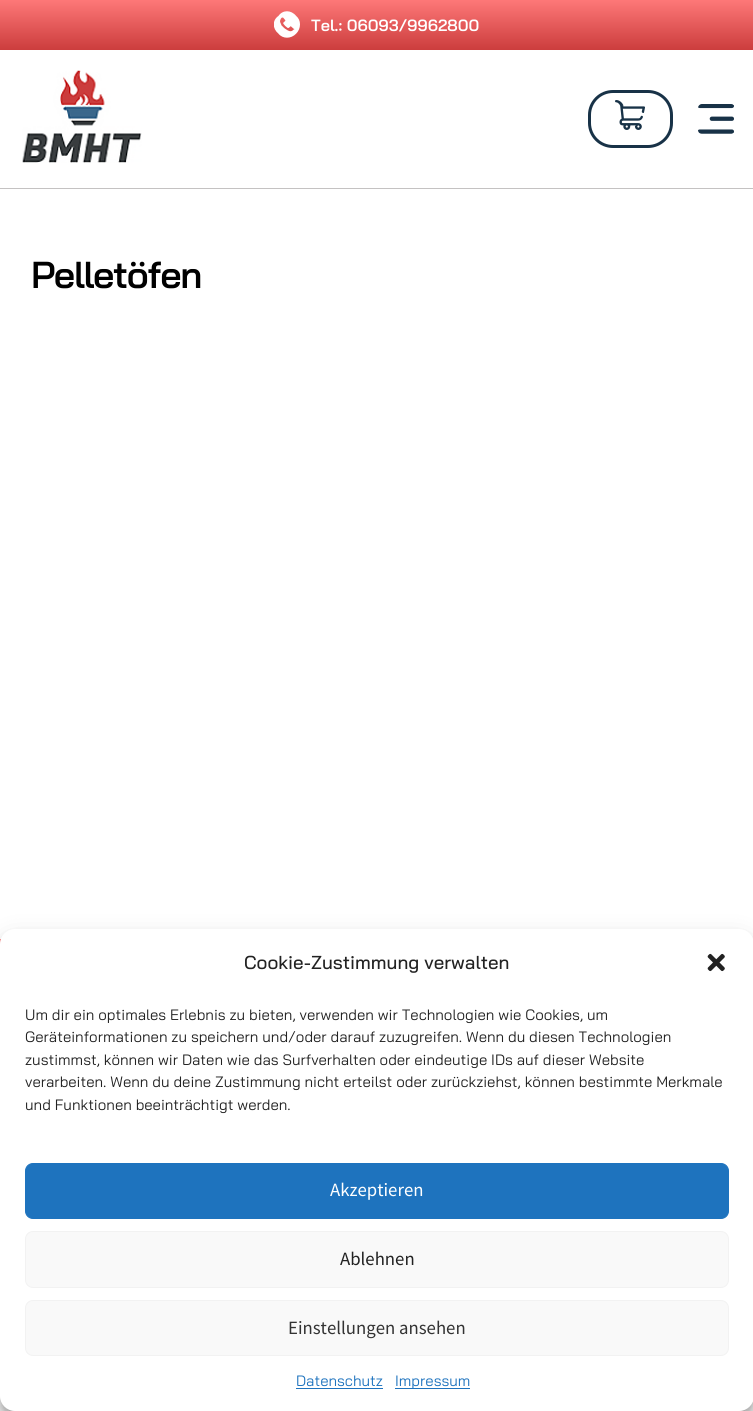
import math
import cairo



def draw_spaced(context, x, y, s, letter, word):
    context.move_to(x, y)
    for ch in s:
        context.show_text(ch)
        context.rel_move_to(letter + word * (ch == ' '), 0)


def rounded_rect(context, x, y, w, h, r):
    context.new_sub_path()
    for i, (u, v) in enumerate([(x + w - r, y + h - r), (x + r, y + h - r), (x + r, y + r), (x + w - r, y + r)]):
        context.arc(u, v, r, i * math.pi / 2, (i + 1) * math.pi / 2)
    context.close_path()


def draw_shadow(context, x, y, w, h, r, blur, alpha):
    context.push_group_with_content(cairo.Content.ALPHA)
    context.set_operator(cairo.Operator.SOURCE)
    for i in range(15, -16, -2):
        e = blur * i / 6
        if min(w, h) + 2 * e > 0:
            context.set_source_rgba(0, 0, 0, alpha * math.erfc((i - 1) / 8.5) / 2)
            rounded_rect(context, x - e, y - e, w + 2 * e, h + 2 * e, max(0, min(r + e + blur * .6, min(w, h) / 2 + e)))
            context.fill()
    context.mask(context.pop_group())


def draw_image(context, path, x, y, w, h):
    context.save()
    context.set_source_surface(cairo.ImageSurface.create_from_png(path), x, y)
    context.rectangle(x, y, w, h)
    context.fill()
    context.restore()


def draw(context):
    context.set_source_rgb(1, 1, 1)
    context.paint()
    context.set_source_rgb(196 / 255, 194 / 255, 194 / 255)
    context.rectangle(0, 188, 753, 1)
    context.fill()
    gradient = cairo.LinearGradient(377, 0, 377, 50)
    gradient.add_color_stop_rgba(0, 254 / 255, 120 / 255, 120 / 255, 1)
    gradient.add_color_stop_rgba(1, 203 / 255, 61 / 255, 61 / 255, 1)
    context.set_source(gradient)
    context.rectangle(0, 0, 753, 50)
    context.fill()
    draw_image(context, "images/1.png", 274, 11, 26, 27)
    draw_image(context, "images/2.png", 22, 70, 120, 93)
    rounded_rect(context, 589.5, 91.5, 82, 55, 23.5)
    context.set_source_rgb(24 / 255, 50 / 255, 71 / 255)
    context.set_line_width(3)
    context.stroke()
    draw_image(context, "images/3.png", 615, 100, 30, 30)
    draw_image(context, "images/4.png", 698, 104, 36, 30)
    gradient = cairo.LinearGradient(377, 939, 377, 989)
    gradient.add_color_stop_rgba(0, 254 / 255, 120 / 255, 120 / 255, 1)
    gradient.add_color_stop_rgba(1, 203 / 255, 61 / 255, 61 / 255, 1)
    context.set_source(gradient)
    context.rectangle(0, 939, 1, 5)
    context.fill()
    context.set_source_rgb(0, 0, 0)
    draw_shadow(context, 0, 936, 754, 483, 15, 4, 0.23)
    draw_shadow(context, 0, 941, 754, 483, 15, 12.5, 0.19)
    context.set_source_rgb(1, 1, 1)
    rounded_rect(context, 0, 929, 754, 482, 15)
    context.fill()
    draw_image(context, "images/5.png", 707, 953, 18, 19)
    context.set_source_rgb(30 / 255, 115 / 255, 190 / 255)
    rounded_rect(context, 25.5, 1163.5, 703, 55, 7.5)
    context.fill_preserve()
    context.set_line_width(1)
    context.stroke()
    context.set_source_rgb(249 / 255, 249 / 255, 249 / 255)
    rounded_rect(context, 25.5, 1231.5, 703, 56, 7.5)
    context.fill_preserve()
    context.set_source_rgb(242 / 255, 242 / 255, 242 / 255)
    context.stroke()
    context.set_source_rgb(249 / 255, 249 / 255, 249 / 255)
    rounded_rect(context, 25.5, 1300.5, 703, 55, 7.5)
    context.fill_preserve()
    context.set_source_rgb(242 / 255, 242 / 255, 242 / 255)
    context.stroke()
    context.set_source_rgb(30 / 255, 115 / 255, 190 / 255)
    context.rectangle(296, 1388, 87, 1)
    context.fill()
    context.rectangle(395, 1388, 75, 1)
    context.fill()
    context.select_font_face("Bai Jamjuree SemiBold")
    context.set_font_size(16.25)
    context.set_source_rgb(1, 1, 1)
    context.move_to(311, 31)
    context.show_text("Tel.: 06093/9962800")
    context.set_font_size(37.5)
    context.set_source_rgb(0, 0, 0)
    draw_spaced(context, 31, 288, "Pelletöfen", -1.25, 0)
    context.select_font_face("Bai Jamjuree Medium")
    context.set_font_size(18.75)
    context.set_source_rgb(34 / 255, 34 / 255, 34 / 255)
    context.move_to(244, 969)
    context.show_text("Cookie-Zustimmung verwalten")
    context.select_font_face("Bai Jamjuree")
    context.set_font_size(15)
    context.move_to(25, 1020)
    context.show_text("Um dir ein optimales Erlebnis zu bieten, verwenden wir Technologien wie Cookies, um")
    context.move_to(25, 1042)
    context.show_text("Geräteinformationen zu speichern und/oder darauf zuzugreifen. Wenn du diesen Technologien")
    context.move_to(25, 1065)
    context.show_text("zustimmst, können wir Daten wie das Surfverhalten oder eindeutige IDs auf dieser Website")
    context.move_to(25, 1087)
    context.show_text("verarbeiten. Wenn du deine Zustimmung nicht erteilst oder zurückziehst, können bestimmte Merkmale")
    context.move_to(25, 1110)
    context.show_text("und Funktionen beeinträchtigt werden.")
    context.select_font_face("Source Sans Pro")
    context.set_font_size(18.75)
    context.set_source_rgb(1, 1, 1)
    context.move_to(330, 1196)
    context.show_text("Akzeptieren")
    context.set_source_rgb(34 / 255, 34 / 255, 34 / 255)
    context.move_to(340, 1265)
    context.show_text("Ablehnen")
    context.set_source_rgb(51 / 255, 51 / 255, 51 / 255)
    context.move_to(288, 1334)
    context.show_text("Einstellungen ansehen")
    context.select_font_face("Bai Jamjuree")
    context.set_font_size(15)
    context.set_source_rgb(30 / 255, 115 / 255, 190 / 255)
    context.move_to(296, 1386)
    context.show_text("Datenschutz")
    context.move_to(395, 1386)
    context.show_text("Impressum")


surface = cairo.ImageSurface(cairo.Format.RGB24, 753, 1411)
context = cairo.Context(surface)
options = cairo.FontOptions()
options.set_hint_metrics(cairo.HintMetrics.OFF)
options.set_hint_style(cairo.HintStyle.NONE)
context.set_font_options(options)
context.set_miter_limit(4)
draw(context)
surface.write_to_png("out.png")
